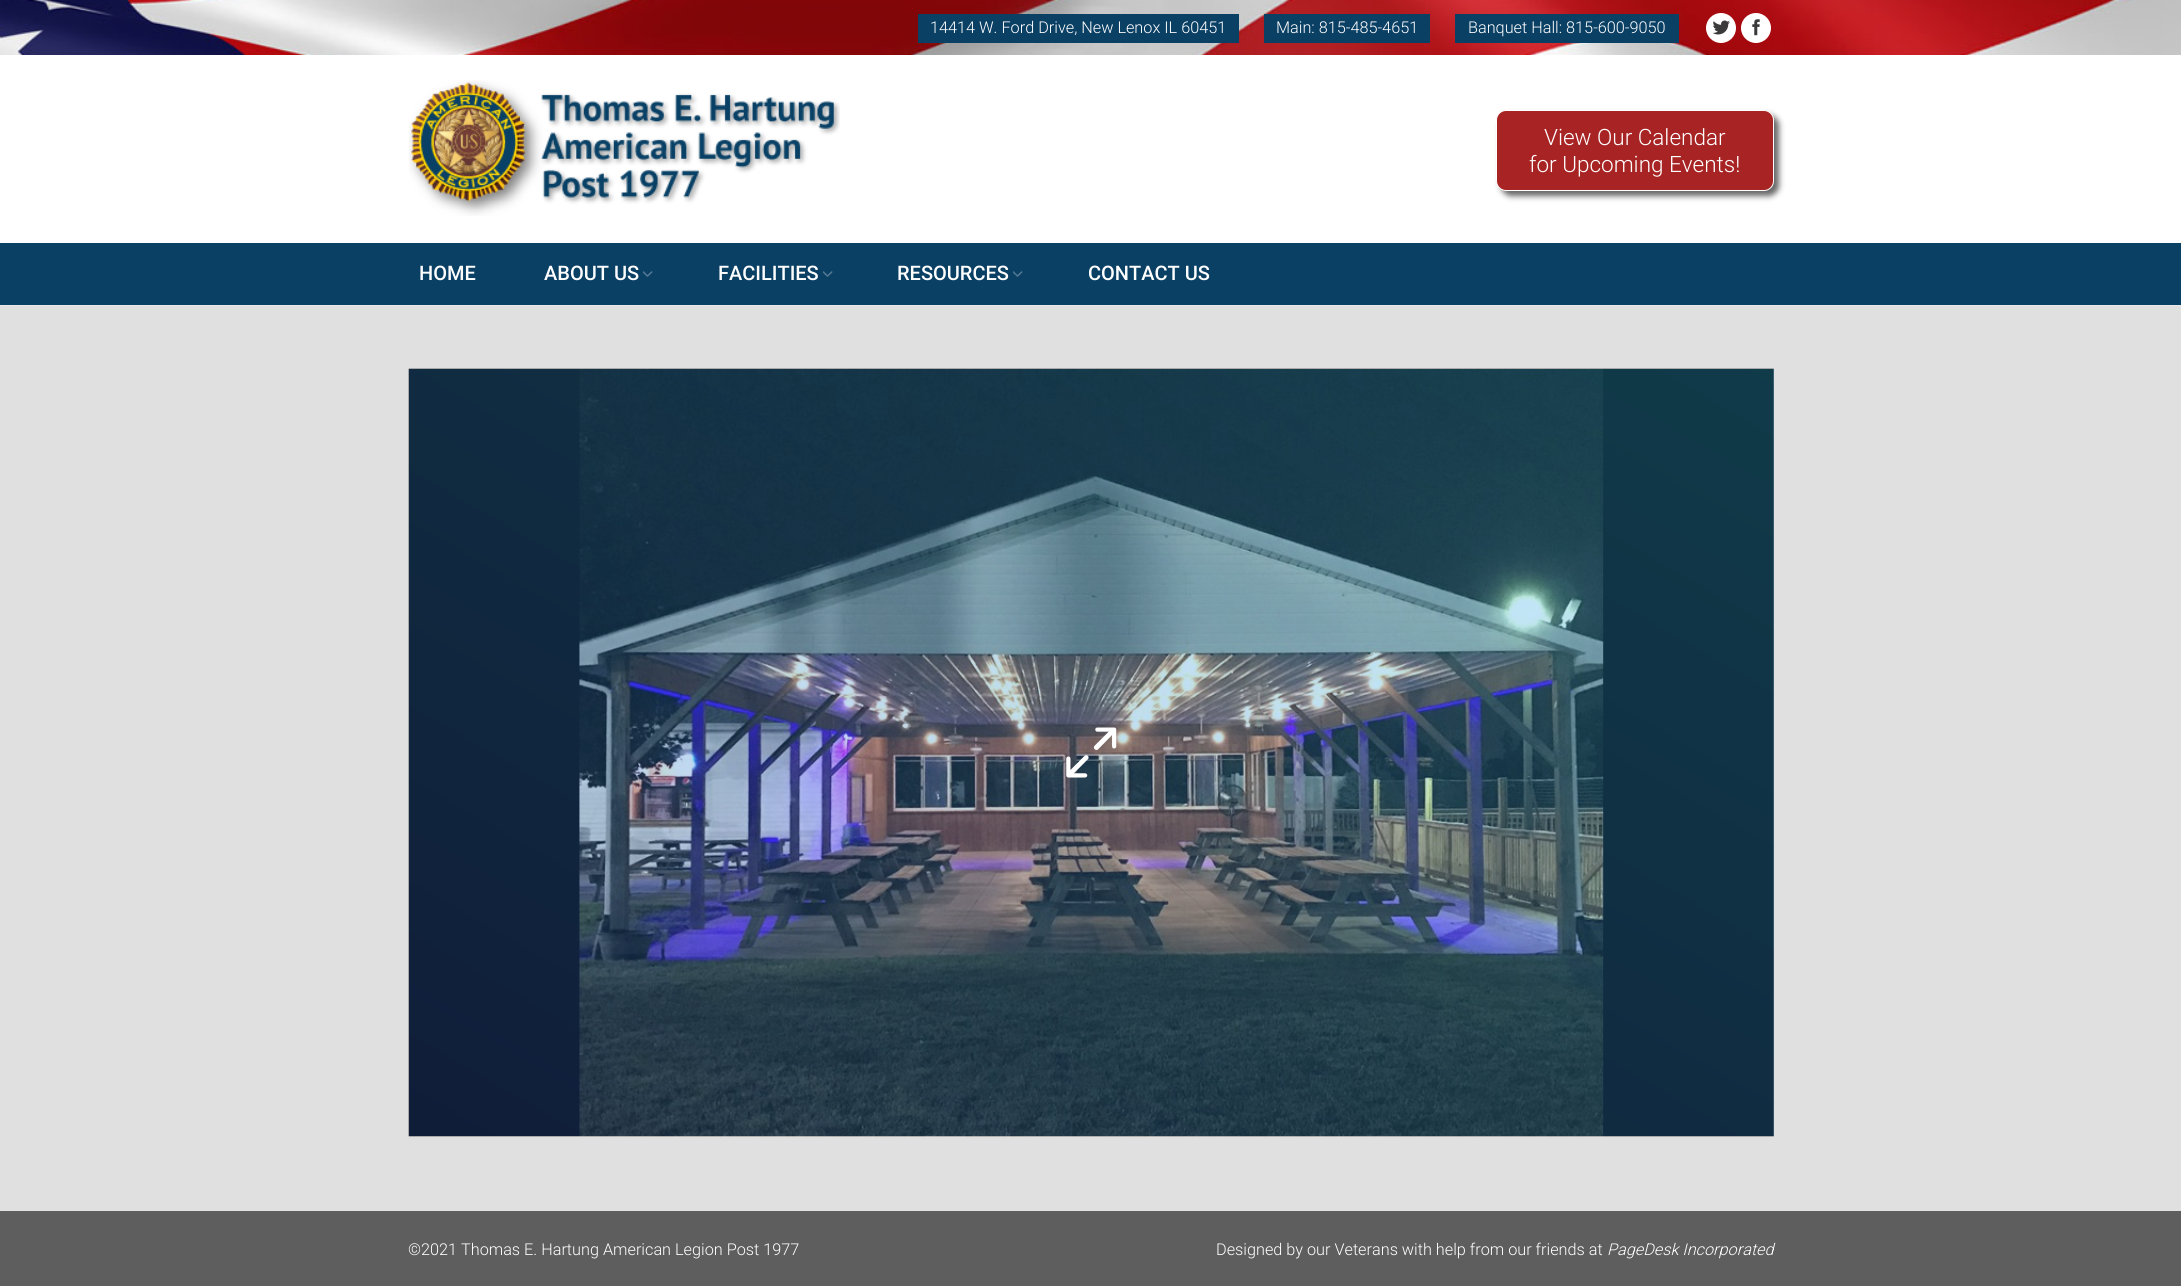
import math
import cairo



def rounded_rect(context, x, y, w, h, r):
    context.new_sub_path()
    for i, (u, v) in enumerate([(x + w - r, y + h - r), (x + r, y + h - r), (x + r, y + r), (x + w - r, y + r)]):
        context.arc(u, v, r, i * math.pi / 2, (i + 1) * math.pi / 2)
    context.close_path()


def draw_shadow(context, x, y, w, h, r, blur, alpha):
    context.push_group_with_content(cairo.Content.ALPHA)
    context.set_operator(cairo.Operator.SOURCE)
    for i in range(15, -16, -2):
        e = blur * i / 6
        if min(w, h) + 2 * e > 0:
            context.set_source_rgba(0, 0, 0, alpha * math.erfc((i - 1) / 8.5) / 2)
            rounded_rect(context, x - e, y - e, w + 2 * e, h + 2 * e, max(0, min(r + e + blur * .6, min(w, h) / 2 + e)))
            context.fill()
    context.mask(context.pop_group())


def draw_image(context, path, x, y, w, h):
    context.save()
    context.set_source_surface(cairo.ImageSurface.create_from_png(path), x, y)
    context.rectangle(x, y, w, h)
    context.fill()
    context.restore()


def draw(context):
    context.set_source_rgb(224 / 255, 224 / 255, 224 / 255)
    context.paint()
    context.set_source_rgb(1, 1, 1)
    context.rectangle(0, 55, 2181, 188)
    context.fill()
    context.set_source_rgb(233 / 255, 233 / 255, 233 / 255)
    context.rectangle(0, 305, 2181, 1)
    context.fill()
    draw_image(context, "images/1.png", 0, 0, 2181, 55)
    context.set_source_rgb(11 / 255, 64 / 255, 101 / 255)
    context.rectangle(918, 14, 321, 29)
    context.fill()
    context.rectangle(1264, 14, 166, 29)
    context.fill()
    context.rectangle(1455, 14, 224, 29)
    context.fill()
    context.set_source_rgb(1, 1, 1)
    context.arc(1721, 28, 15, 0, 2 * math.pi)
    context.fill()
    draw_image(context, "images/2.png", 1712, 20, 18, 15)
    context.arc(1756, 28, 15, 0, 2 * math.pi)
    context.fill()
    draw_image(context, "images/3.png", 1752, 19, 8, 17)
    draw_image(context, "images/4.png", 409, 80, 431, 136)
    context.set_source_rgb(50 / 255, 50 / 255, 50 / 255)
    draw_shadow(context, 1501, 115, 278, 81, 10, 3, 0.75)
    context.set_source_rgb(168 / 255, 35 / 255, 35 / 255)
    rounded_rect(context, 1496.5, 110.5, 277, 80, 9.5)
    context.fill_preserve()
    context.set_source_rgb(1, 1, 1)
    context.set_line_width(1)
    context.stroke()
    context.set_source_rgb(11 / 255, 64 / 255, 101 / 255)
    context.rectangle(0, 243, 2181, 62)
    context.fill()
    draw_image(context, "images/5.png", 643, 271, 10, 6)
    draw_image(context, "images/5.png", 823, 271, 10, 6)
    draw_image(context, "images/5.png", 1013, 271, 10, 6)
    draw_image(context, "images/6.png", 408, 368, 1366, 769)
    gradient = cairo.LinearGradient(754, 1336, 1428, 169)
    gradient.add_color_stop_rgba(0, 53 / 255, 95 / 255, 190 / 255, 0.3)
    gradient.add_color_stop_rgba(1, 53 / 255, 196 / 255, 244 / 255, 0.3)
    context.set_source(gradient)
    context.rectangle(409, 369, 1365, 767)
    context.fill()
    draw_image(context, "images/7.png", 1066, 727, 51, 51)
    context.set_source_rgb(94 / 255, 94 / 255, 94 / 255)
    context.rectangle(0, 1211, 2181, 75)
    context.fill()
    context.select_font_face("Roboto Light")
    context.set_font_size(16.25)
    context.set_source_rgb(1, 1, 1)
    context.move_to(930, 33)
    context.show_text("14414 W. Ford Drive, New Lenox IL 60451")
    context.move_to(1276, 33)
    context.show_text("Main: 815-485-4651")
    context.move_to(1468, 33)
    context.show_text("Banquet Hall: 815-600-9050")
    context.set_font_size(22.5)
    context.move_to(1544, 145)
    context.show_text("View Our Calendar")
    context.move_to(1529, 172)
    context.show_text("for Upcoming Events!")
    context.select_font_face("Roboto Medium")
    context.set_font_size(20)
    context.move_to(419, 280)
    context.show_text("HOME")
    context.move_to(544, 280)
    context.show_text("ABOUT US")
    context.move_to(718, 280)
    context.show_text("FACILITIES")
    context.move_to(897, 280)
    context.show_text("RESOURCES")
    context.move_to(1088, 280)
    context.show_text("CONTACT US")
    context.select_font_face("Roboto Light")
    context.set_font_size(16.25)
    context.move_to(408, 1255)
    context.show_text("©2021 Thomas E. Hartung American Legion Post 1977")
    context.move_to(1216, 1255)
    context.show_text("Designed by our Veterans with help from our friends at")
    context.select_font_face("Roboto Light", cairo.FontSlant.ITALIC)
    context.move_to(1607, 1255)
    context.show_text("PageDesk Incorporated")


surface = cairo.ImageSurface(cairo.Format.RGB24, 2181, 1286)
context = cairo.Context(surface)
options = cairo.FontOptions()
options.set_hint_metrics(cairo.HintMetrics.OFF)
options.set_hint_style(cairo.HintStyle.NONE)
context.set_font_options(options)
context.set_miter_limit(4)
draw(context)
surface.write_to_png("out.png")
